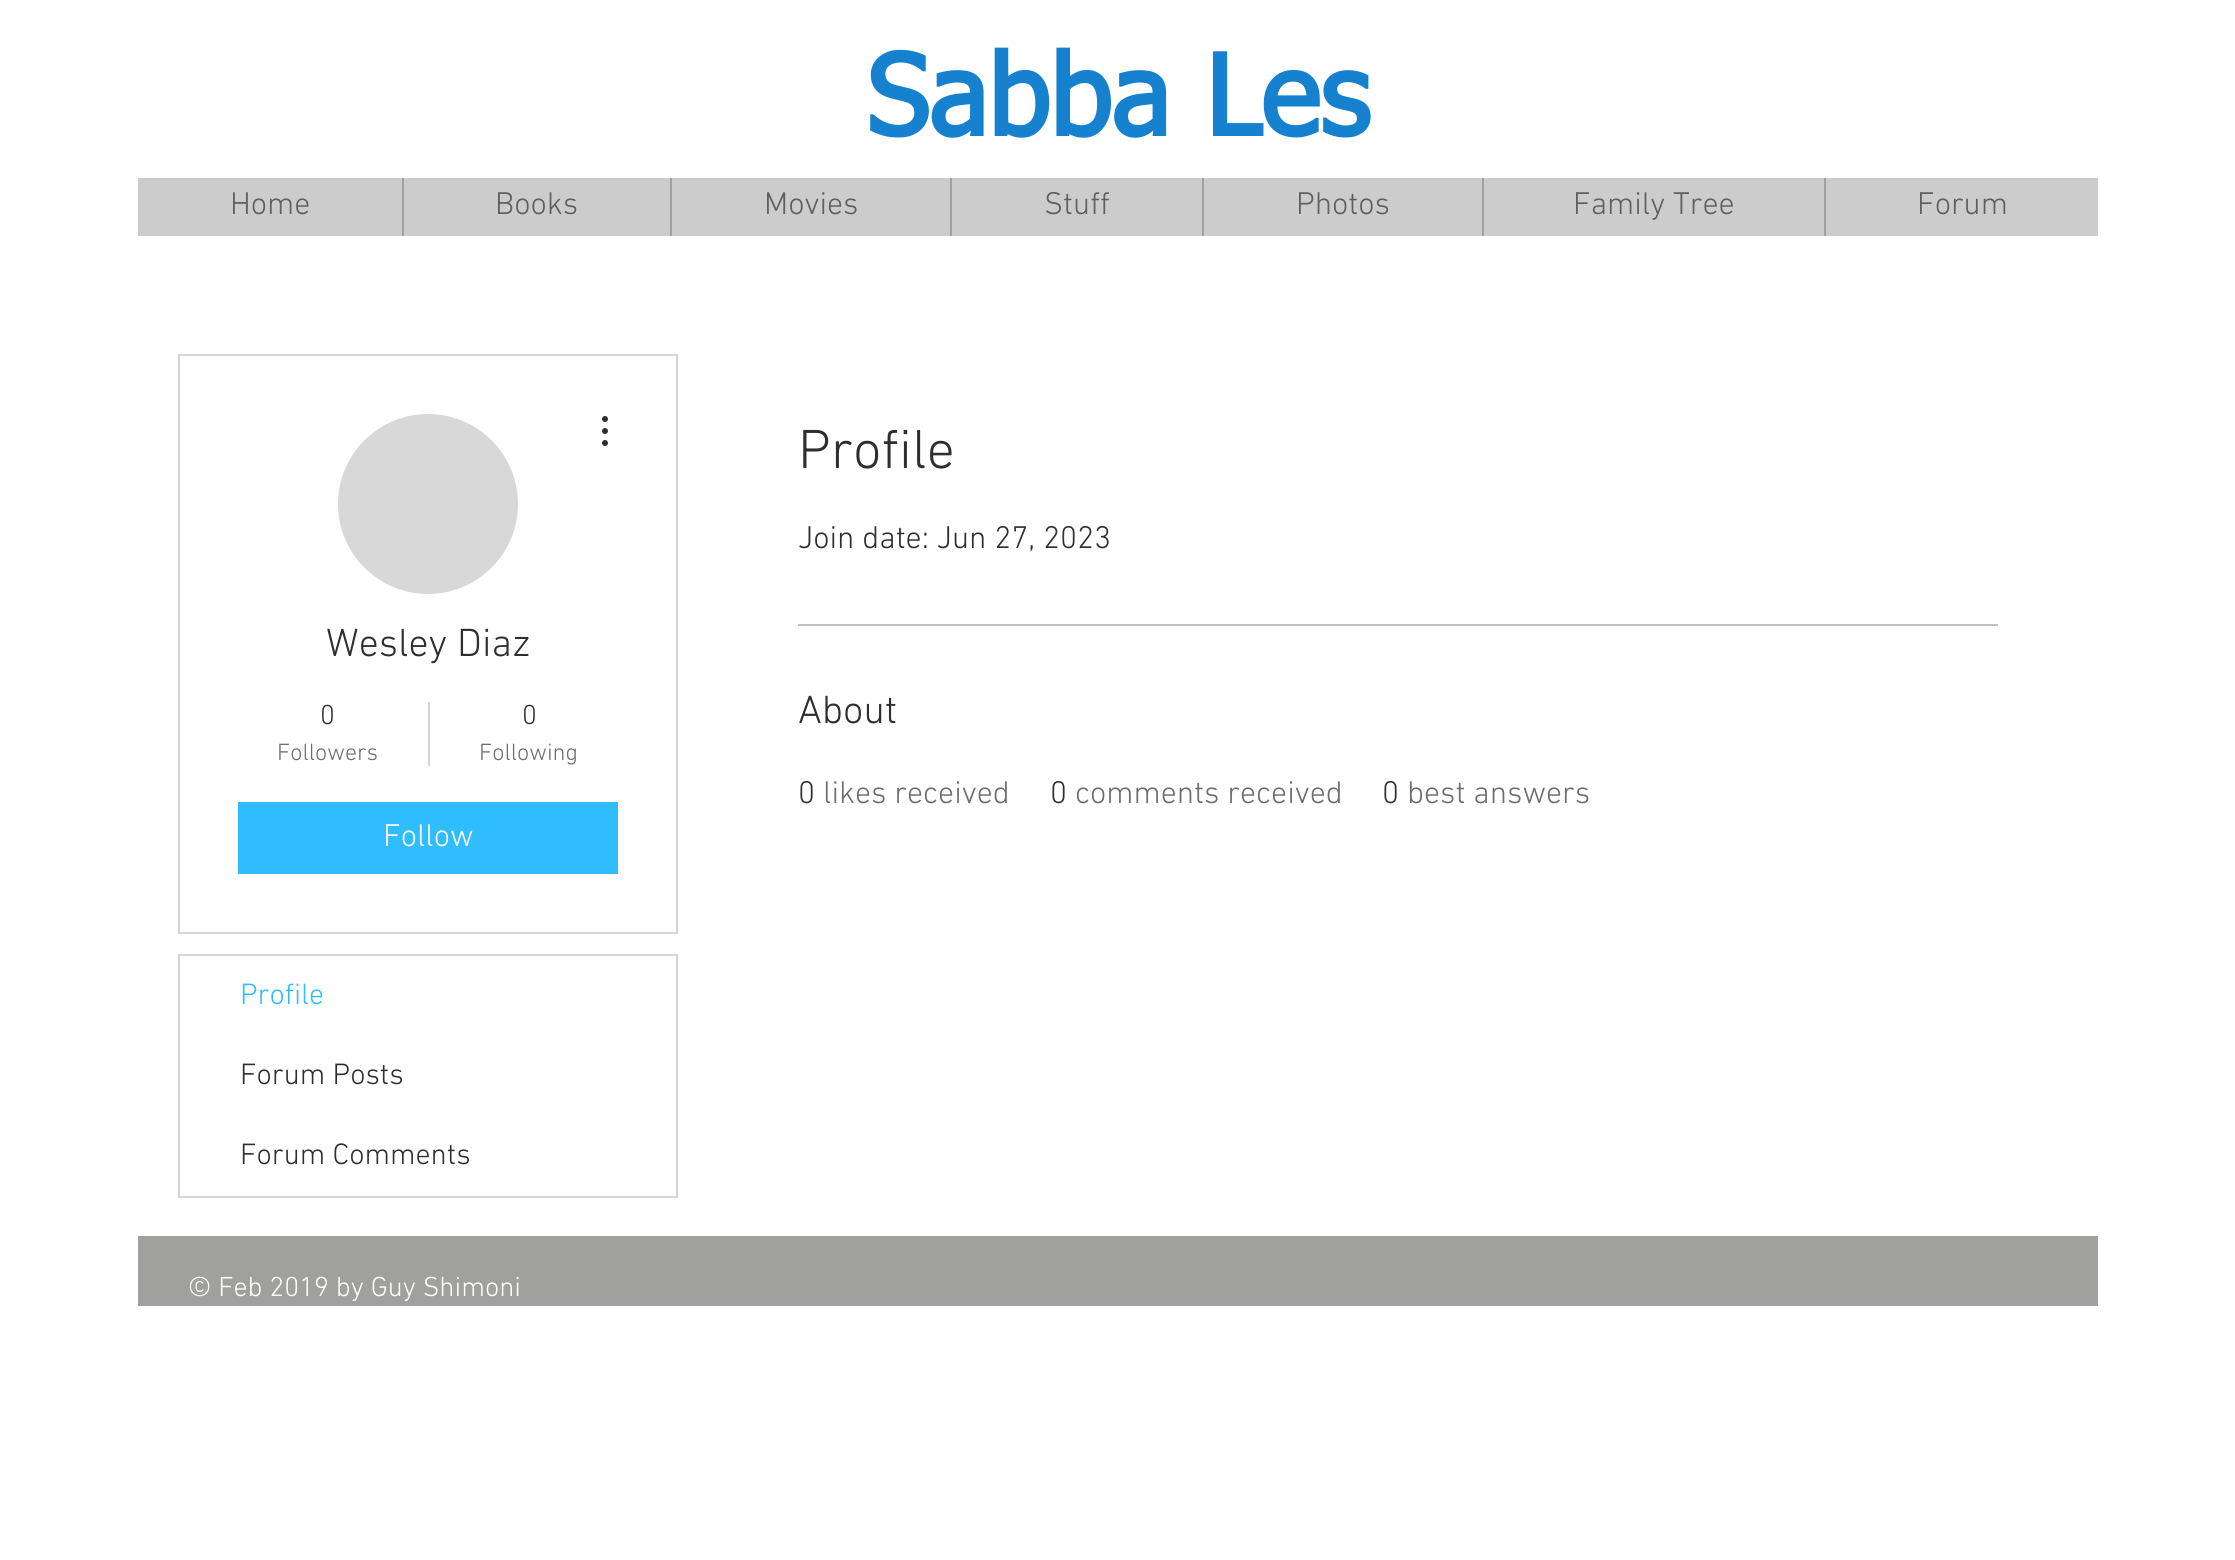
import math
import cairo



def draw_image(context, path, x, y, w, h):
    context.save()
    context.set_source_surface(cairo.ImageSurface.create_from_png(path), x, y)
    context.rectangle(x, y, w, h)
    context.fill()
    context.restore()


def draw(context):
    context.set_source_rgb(1, 1, 1)
    context.paint()
    context.set_source_rgb(204 / 255, 204 / 255, 204 / 255)
    context.rectangle(138, 178, 1960, 58)
    context.fill()
    context.set_source_rgb(160 / 255, 160 / 255, 159 / 255)
    context.rectangle(402, 178, 2, 58)
    context.fill()
    context.rectangle(670, 178, 2, 58)
    context.fill()
    context.rectangle(950, 178, 2, 58)
    context.fill()
    context.rectangle(1202, 178, 2, 58)
    context.fill()
    context.rectangle(1482, 178, 2, 58)
    context.fill()
    context.rectangle(1824, 178, 2, 58)
    context.fill()
    context.rectangle(179, 355, 498, 578)
    context.set_source_rgb(213 / 255, 213 / 255, 213 / 255)
    context.stroke()
    context.set_source_rgb(216 / 255, 216 / 255, 216 / 255)
    context.arc(428, 504, 90, 0, 2 * math.pi)
    context.fill()
    draw_image(context, "images/1.png", 602, 416, 6, 30)
    context.set_source_rgb(213 / 255, 213 / 255, 213 / 255)
    context.rectangle(428, 702, 2, 64)
    context.fill()
    context.set_source_rgb(48 / 255, 189 / 255, 1)
    context.rectangle(238, 802, 380, 72)
    context.fill()
    context.rectangle(179, 955, 498, 242)
    context.set_source_rgb(213 / 255, 213 / 255, 213 / 255)
    context.stroke()
    context.set_source_rgb(193 / 255, 192 / 255, 192 / 255)
    context.rectangle(798, 624, 1200, 2)
    context.fill()
    context.set_source_rgb(160 / 255, 160 / 255, 159 / 255)
    context.rectangle(138, 1236, 1960, 70)
    context.fill()
    context.select_font_face("tahoma", cairo.FontSlant.NORMAL, cairo.FontWeight.BOLD)
    context.set_font_size(112)
    context.set_source_rgb(21 / 255, 129 / 255, 207 / 255)
    context.move_to(866, 136)
    context.show_text("Sabba Les")
    context.select_font_face("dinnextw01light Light")
    context.set_font_size(32)
    context.set_source_rgb(96 / 255, 94 / 255, 94 / 255)
    context.move_to(230, 214)
    context.show_text("Home")
    context.move_to(495, 214)
    context.show_text("Books")
    context.move_to(764, 214)
    context.show_text("Movies")
    context.move_to(1044, 214)
    context.show_text("Stuff")
    context.move_to(1296, 214)
    context.show_text("Photos")
    context.move_to(1573, 214)
    context.show_text("Family Tree")
    context.move_to(1917, 214)
    context.show_text("Forum")
    context.set_font_size(40)
    context.set_source_rgb(47 / 255, 46 / 255, 46 / 255)
    context.move_to(326, 656)
    context.show_text("Wesley Diaz")
    context.set_font_size(28)
    context.move_to(320, 724)
    context.show_text("0")
    context.set_font_size(24)
    context.set_source_rgb(109 / 255, 109 / 255, 109 / 255)
    context.move_to(277, 760)
    context.show_text("Followers")
    context.set_font_size(28)
    context.set_source_rgb(47 / 255, 46 / 255, 46 / 255)
    context.move_to(522, 724)
    context.show_text("0")
    context.set_font_size(24)
    context.set_source_rgb(109 / 255, 109 / 255, 109 / 255)
    context.move_to(479, 760)
    context.show_text("Following")
    context.set_font_size(32)
    context.set_source_rgb(1, 1, 1)
    context.move_to(383, 846)
    context.show_text("Follow")
    context.set_font_size(30)
    context.set_source_rgb(48 / 255, 189 / 255, 1)
    context.move_to(240, 1004)
    context.show_text("Profile")
    context.set_source_rgb(47 / 255, 46 / 255, 46 / 255)
    context.move_to(240, 1084)
    context.show_text("Forum Posts")
    context.move_to(240, 1164)
    context.show_text("Forum Comments")
    context.set_font_size(56)
    context.move_to(798, 468)
    context.show_text("Profile")
    context.set_font_size(32)
    context.move_to(798, 548)
    context.show_text("Join date: Jun 27, 2023")
    context.set_font_size(40)
    context.move_to(798, 723)
    context.show_text("About")
    context.set_font_size(32)
    context.move_to(798, 803)
    context.show_text("0")
    context.set_source_rgb(109 / 255, 109 / 255, 109 / 255)
    context.move_to(823, 803)
    context.show_text("likes received")
    context.set_source_rgb(47 / 255, 46 / 255, 46 / 255)
    context.move_to(1050, 803)
    context.show_text("0")
    context.set_source_rgb(109 / 255, 109 / 255, 109 / 255)
    context.move_to(1075, 803)
    context.show_text("comments received")
    context.set_source_rgb(47 / 255, 46 / 255, 46 / 255)
    context.move_to(1382, 803)
    context.show_text("0")
    context.set_source_rgb(109 / 255, 109 / 255, 109 / 255)
    context.move_to(1407, 803)
    context.show_text("best answers")
    context.set_font_size(28)
    context.set_source_rgb(1, 1, 1)
    context.move_to(188, 1296)
    context.show_text("© Feb 2019 by Guy Shimoni")


surface = cairo.ImageSurface(cairo.Format.RGB24, 2235, 1560)
context = cairo.Context(surface)
options = cairo.FontOptions()
options.set_hint_metrics(cairo.HintMetrics.OFF)
options.set_hint_style(cairo.HintStyle.NONE)
context.set_font_options(options)
context.set_miter_limit(4)
draw(context)
surface.write_to_png("out.png")
